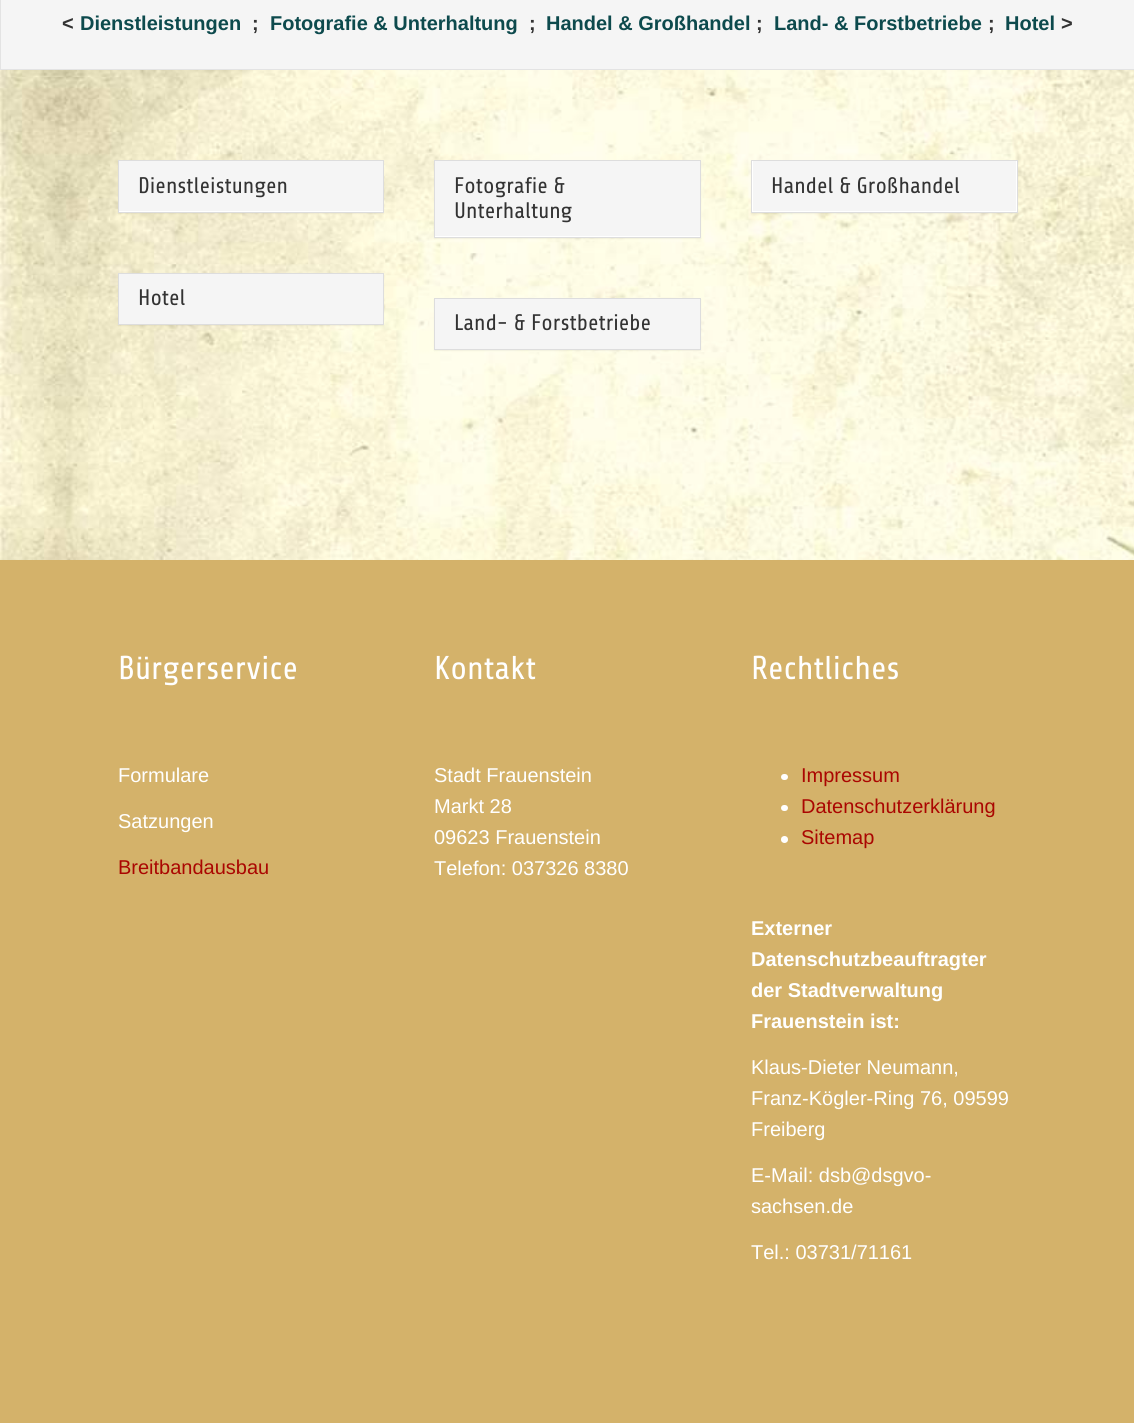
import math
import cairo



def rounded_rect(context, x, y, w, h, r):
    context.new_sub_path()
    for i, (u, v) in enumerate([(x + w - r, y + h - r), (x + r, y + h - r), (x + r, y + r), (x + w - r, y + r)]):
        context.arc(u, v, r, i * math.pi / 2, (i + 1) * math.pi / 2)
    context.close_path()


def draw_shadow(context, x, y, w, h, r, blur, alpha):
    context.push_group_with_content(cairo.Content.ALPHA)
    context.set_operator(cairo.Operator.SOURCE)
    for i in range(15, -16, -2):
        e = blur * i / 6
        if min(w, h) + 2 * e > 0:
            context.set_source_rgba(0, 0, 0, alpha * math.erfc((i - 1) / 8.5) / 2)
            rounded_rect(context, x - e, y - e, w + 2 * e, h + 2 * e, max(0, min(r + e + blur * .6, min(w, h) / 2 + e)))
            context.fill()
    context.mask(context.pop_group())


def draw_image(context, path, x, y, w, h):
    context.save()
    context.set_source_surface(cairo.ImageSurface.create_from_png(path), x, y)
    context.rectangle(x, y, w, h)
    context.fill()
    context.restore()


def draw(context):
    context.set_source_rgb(1, 1, 1)
    context.paint()
    draw_image(context, "images/1.png", 0, 70, 1134, 490)
    context.set_source_rgb(245 / 255, 245 / 255, 245 / 255)
    context.rectangle(0.5, -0.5, 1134, 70)
    context.fill_preserve()
    context.set_source_rgb(227 / 255, 227 / 255, 227 / 255)
    context.set_line_width(1)
    context.stroke()
    context.set_source_rgb(0, 0, 0)
    draw_shadow(context, 118, 161, 266, 53, 0, 0.5, 0.05)
    context.set_source_rgb(1, 1, 1)
    context.rectangle(119, 211, 264, 1)
    context.fill()
    context.rectangle(118.5, 160.5, 265, 52)
    context.set_source_rgb(221 / 255, 221 / 255, 221 / 255)
    context.stroke()
    context.set_source_rgb(245 / 255, 245 / 255, 245 / 255)
    context.rectangle(119, 161, 264, 50)
    context.fill()
    context.set_source_rgb(0, 0, 0)
    draw_shadow(context, 118, 274, 266, 52, 0, 0.5, 0.05)
    context.rectangle(118.5, 273.5, 265, 51)
    context.set_source_rgb(221 / 255, 221 / 255, 221 / 255)
    context.stroke()
    context.set_source_rgb(245 / 255, 245 / 255, 245 / 255)
    context.rectangle(119, 274, 264, 50)
    context.fill()
    context.set_source_rgb(0, 0, 0)
    draw_shadow(context, 434, 161, 267, 78, 0, 0.5, 0.05)
    context.set_source_rgb(1, 1, 1)
    context.rectangle(435, 236, 265, 1)
    context.fill()
    context.rectangle(434.5, 160.5, 266, 77)
    context.set_source_rgb(221 / 255, 221 / 255, 221 / 255)
    context.stroke()
    context.set_source_rgb(245 / 255, 245 / 255, 245 / 255)
    context.rectangle(435, 161, 265, 75)
    context.fill()
    context.set_source_rgb(0, 0, 0)
    draw_shadow(context, 434, 299, 267, 52, 0, 0.5, 0.05)
    context.rectangle(434.5, 298.5, 266, 51)
    context.set_source_rgb(221 / 255, 221 / 255, 221 / 255)
    context.stroke()
    context.set_source_rgb(245 / 255, 245 / 255, 245 / 255)
    context.rectangle(435, 299, 265, 50)
    context.fill()
    context.set_source_rgb(0, 0, 0)
    draw_shadow(context, 751, 161, 267, 53, 0, 0.5, 0.05)
    context.set_source_rgb(1, 1, 1)
    context.rectangle(751.5, 160.5, 266, 52)
    context.fill_preserve()
    context.set_source_rgb(221 / 255, 221 / 255, 221 / 255)
    context.stroke()
    context.set_source_rgb(245 / 255, 245 / 255, 245 / 255)
    context.rectangle(753, 161, 263, 50)
    context.fill()
    context.set_source_rgb(212 / 255, 178 / 255, 106 / 255)
    context.rectangle(0, 560, 1134, 863)
    context.fill()
    context.set_source_rgb(1, 1, 1)
    rounded_rect(context, 781, 774, 7, 6, 3)
    context.fill()
    rounded_rect(context, 781, 805, 7, 6, 3)
    context.fill()
    context.arc(784.5, 839.5, 3.5, 0, 2 * math.pi)
    context.fill()
    context.select_font_face("Liberation Sans", cairo.FontSlant.NORMAL, cairo.FontWeight.BOLD)
    context.set_font_size(20)
    context.set_source_rgb(51 / 255, 51 / 255, 51 / 255)
    context.move_to(62, 30)
    context.show_text("<")
    context.set_source_rgb(13 / 255, 74 / 255, 77 / 255)
    context.move_to(80, 30)
    context.show_text("Dienstleistungen")
    context.set_source_rgb(51 / 255, 51 / 255, 51 / 255)
    context.move_to(252, 30)
    context.show_text(";")
    context.set_source_rgb(13 / 255, 74 / 255, 77 / 255)
    context.move_to(270, 30)
    context.show_text("Fotografie & Unterhaltung")
    context.set_source_rgb(51 / 255, 51 / 255, 51 / 255)
    context.move_to(529, 30)
    context.show_text(";")
    context.set_source_rgb(13 / 255, 74 / 255, 77 / 255)
    context.move_to(546, 30)
    context.show_text("Handel & Großhandel")
    context.set_source_rgb(51 / 255, 51 / 255, 51 / 255)
    context.move_to(756, 30)
    context.show_text(";")
    context.set_source_rgb(13 / 255, 74 / 255, 77 / 255)
    context.move_to(774, 30)
    context.show_text("Land- & Forstbetriebe")
    context.set_source_rgb(51 / 255, 51 / 255, 51 / 255)
    context.move_to(988, 30)
    context.show_text(";")
    context.set_source_rgb(13 / 255, 74 / 255, 77 / 255)
    context.move_to(1005, 30)
    context.show_text("Hotel")
    context.set_source_rgb(51 / 255, 51 / 255, 51 / 255)
    context.move_to(1061, 30)
    context.show_text(">")
    context.select_font_face("Share")
    context.set_font_size(22.5)
    context.move_to(138, 193)
    context.show_text("Dienstleistungen")
    context.move_to(138, 305)
    context.show_text("Hotel")
    context.move_to(454, 193)
    context.show_text("Fotografie &")
    context.move_to(454, 218)
    context.show_text("Unterhaltung")
    context.move_to(454, 330)
    context.show_text("Land- & Forstbetriebe")
    context.move_to(771, 193)
    context.show_text("Handel & Großhandel")
    context.set_font_size(33)
    context.set_source_rgb(1, 1, 1)
    context.move_to(118, 679)
    context.show_text("Bürgerservice")
    context.select_font_face("Liberation Sans")
    context.set_font_size(20)
    context.move_to(118, 782)
    context.show_text("Formulare")
    context.move_to(118, 828)
    context.show_text("Satzungen")
    context.set_source_rgb(170 / 255, 6 / 255, 1 / 255)
    context.move_to(118, 874)
    context.show_text("Breitbandausbau")
    context.select_font_face("Share")
    context.set_font_size(33)
    context.set_source_rgb(1, 1, 1)
    context.move_to(434, 679)
    context.show_text("Kontakt")
    context.select_font_face("Liberation Sans")
    context.set_font_size(20)
    context.move_to(434, 782)
    context.show_text("Stadt Frauenstein")
    context.move_to(434, 813)
    context.show_text("Markt 28")
    context.move_to(434, 844)
    context.show_text("09623 Frauenstein")
    context.move_to(434, 875)
    context.show_text("Telefon: 037326 8380")
    context.select_font_face("Share")
    context.set_font_size(33)
    context.move_to(751, 679)
    context.show_text("Rechtliches")
    context.select_font_face("Liberation Sans")
    context.set_font_size(20)
    context.set_source_rgb(170 / 255, 6 / 255, 1 / 255)
    context.move_to(801, 782)
    context.show_text("Impressum")
    context.move_to(801, 813)
    context.show_text("Datenschutzerklärung")
    context.move_to(801, 844)
    context.show_text("Sitemap")
    context.select_font_face("Liberation Sans", cairo.FontSlant.NORMAL, cairo.FontWeight.BOLD)
    context.set_source_rgb(1, 1, 1)
    context.move_to(751, 935)
    context.show_text("Externer")
    context.move_to(751, 966)
    context.show_text("Datenschutzbeauftragter")
    context.move_to(751, 997)
    context.show_text("der Stadtverwaltung")
    context.move_to(751, 1028)
    context.show_text("Frauenstein ist:")
    context.select_font_face("Liberation Sans")
    context.move_to(751, 1074)
    context.show_text("Klaus-Dieter Neumann,")
    context.move_to(751, 1105)
    context.show_text("Franz-Kögler-Ring 76, 09599")
    context.move_to(751, 1136)
    context.show_text("Freiberg")
    context.move_to(751, 1182)
    context.show_text("E-Mail: dsb@dsgvo-")
    context.move_to(751, 1213)
    context.show_text("sachsen.de")
    context.move_to(751, 1259)
    context.show_text("Tel.: 03731/71161")


surface = cairo.ImageSurface(cairo.Format.RGB24, 1134, 1423)
context = cairo.Context(surface)
options = cairo.FontOptions()
options.set_hint_metrics(cairo.HintMetrics.OFF)
options.set_hint_style(cairo.HintStyle.NONE)
context.set_font_options(options)
context.set_miter_limit(4)
draw(context)
surface.write_to_png("out.png")
